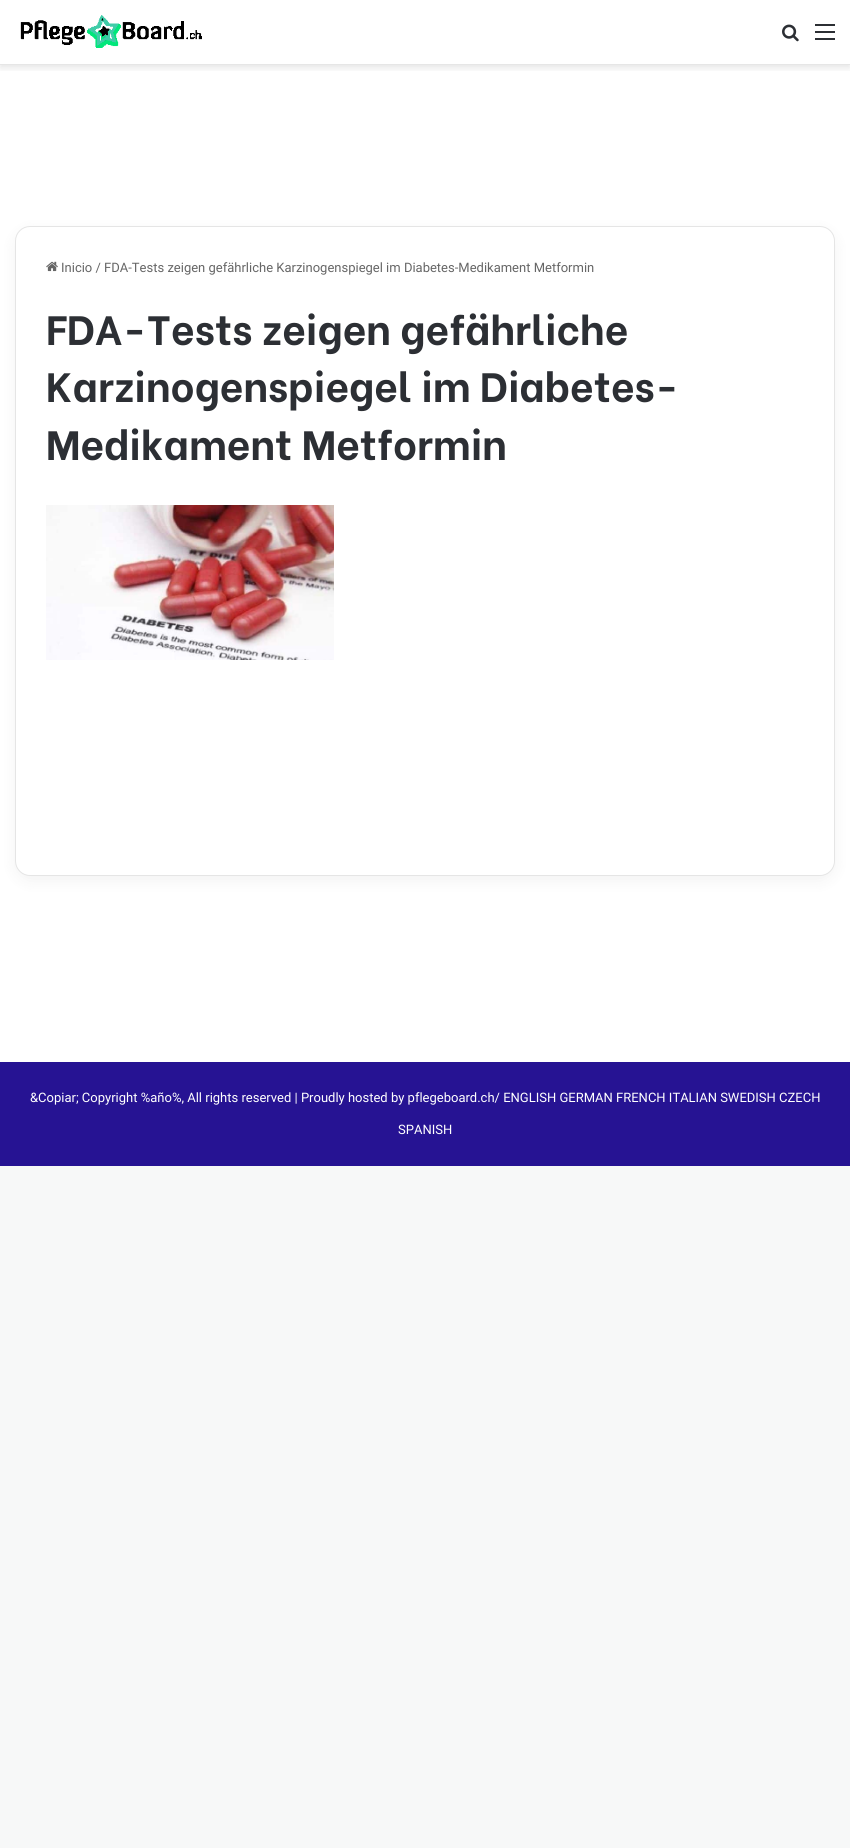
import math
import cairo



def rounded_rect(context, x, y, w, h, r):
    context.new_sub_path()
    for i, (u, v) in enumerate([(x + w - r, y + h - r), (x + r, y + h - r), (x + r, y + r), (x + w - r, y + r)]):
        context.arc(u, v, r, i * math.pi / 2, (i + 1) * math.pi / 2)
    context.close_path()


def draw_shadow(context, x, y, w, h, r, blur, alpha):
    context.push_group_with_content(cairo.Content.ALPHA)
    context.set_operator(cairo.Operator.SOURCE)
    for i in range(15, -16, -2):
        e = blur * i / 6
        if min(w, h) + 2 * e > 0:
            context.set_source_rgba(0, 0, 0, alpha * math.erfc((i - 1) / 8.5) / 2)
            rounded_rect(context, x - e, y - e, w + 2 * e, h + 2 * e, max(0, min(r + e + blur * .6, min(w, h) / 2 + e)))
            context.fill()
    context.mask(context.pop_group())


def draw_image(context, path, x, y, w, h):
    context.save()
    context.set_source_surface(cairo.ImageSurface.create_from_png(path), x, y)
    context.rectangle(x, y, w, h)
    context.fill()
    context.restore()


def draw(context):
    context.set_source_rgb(247 / 255, 248 / 255, 248 / 255)
    context.paint()
    context.set_source_rgb(1, 1, 1)
    context.rectangle(0, 0, 850, 1062)
    context.fill()
    context.save()
    context.rectangle(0, 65, 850, 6)
    context.clip()
    context.set_source_rgb(0, 0, 0)
    draw_shadow(context, 0, 3, 850, 65, 0, 3.5, 0.1)
    context.restore()
    context.set_source_rgb(230 / 255, 230 / 255, 230 / 255)
    context.rectangle(0, 64, 850, 1)
    context.fill()
    draw_image(context, "images/1.png", 20, 15, 182, 33)
    draw_image(context, "images/2.png", 782, 24, 17, 18)
    context.set_source_rgb(44 / 255, 47 / 255, 52 / 255)
    context.rectangle(815, 31, 20, 2)
    context.fill()
    context.rectangle(815, 24, 20, 2)
    context.fill()
    context.rectangle(815, 38, 20, 2)
    context.fill()
    context.set_source_rgb(0, 0, 0)
    draw_shadow(context, 15, 231, 820, 650, 15, 7.5, 0.05)
    context.set_source_rgb(1, 1, 1)
    rounded_rect(context, 15.5, 226.5, 819, 649, 14.5)
    context.fill_preserve()
    context.set_source_rgb(229 / 255, 229 / 255, 229 / 255)
    context.set_line_width(1)
    context.stroke()
    draw_image(context, "images/3.png", 46, 261, 12, 11)
    draw_image(context, "images/4.png", 46, 505, 288, 155)
    context.set_source_rgb(38 / 255, 19 / 255, 147 / 255)
    context.rectangle(0, 1062, 850, 104)
    context.fill()
    context.select_font_face("Roboto")
    context.set_font_size(13)
    context.set_source_rgb(102 / 255, 102 / 255, 102 / 255)
    context.move_to(61, 272)
    context.show_text("Inicio / FDA-Tests zeigen gefährliche Karzinogenspiegel im Diabetes-Medikament Metformin")
    context.select_font_face("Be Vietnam", cairo.FontSlant.NORMAL, cairo.FontWeight.BOLD)
    context.set_font_size(41)
    context.set_source_rgb(44 / 255, 47 / 255, 52 / 255)
    context.move_to(46, 345)
    context.show_text("FDA-Tests zeigen gefährliche")
    context.move_to(46, 402)
    context.show_text("Karzinogenspiegel im Diabetes-")
    context.move_to(46, 460)
    context.show_text("Medikament Metformin")
    context.select_font_face("Roboto")
    context.set_font_size(13)
    context.set_source_rgb(1, 1, 1)
    context.move_to(30, 1102)
    context.show_text("&Copiar; Copyright %año%, All rights reserved | Proudly hosted by pflegeboard.ch/ ENGLISH GERMAN FRENCH ITALIAN SWEDISH CZECH")
    context.move_to(398, 1134)
    context.show_text("SPANISH")


surface = cairo.ImageSurface(cairo.Format.RGB24, 850, 1848)
context = cairo.Context(surface)
options = cairo.FontOptions()
options.set_hint_metrics(cairo.HintMetrics.OFF)
options.set_hint_style(cairo.HintStyle.NONE)
context.set_font_options(options)
context.set_miter_limit(4)
draw(context)
surface.write_to_png("out.png")
